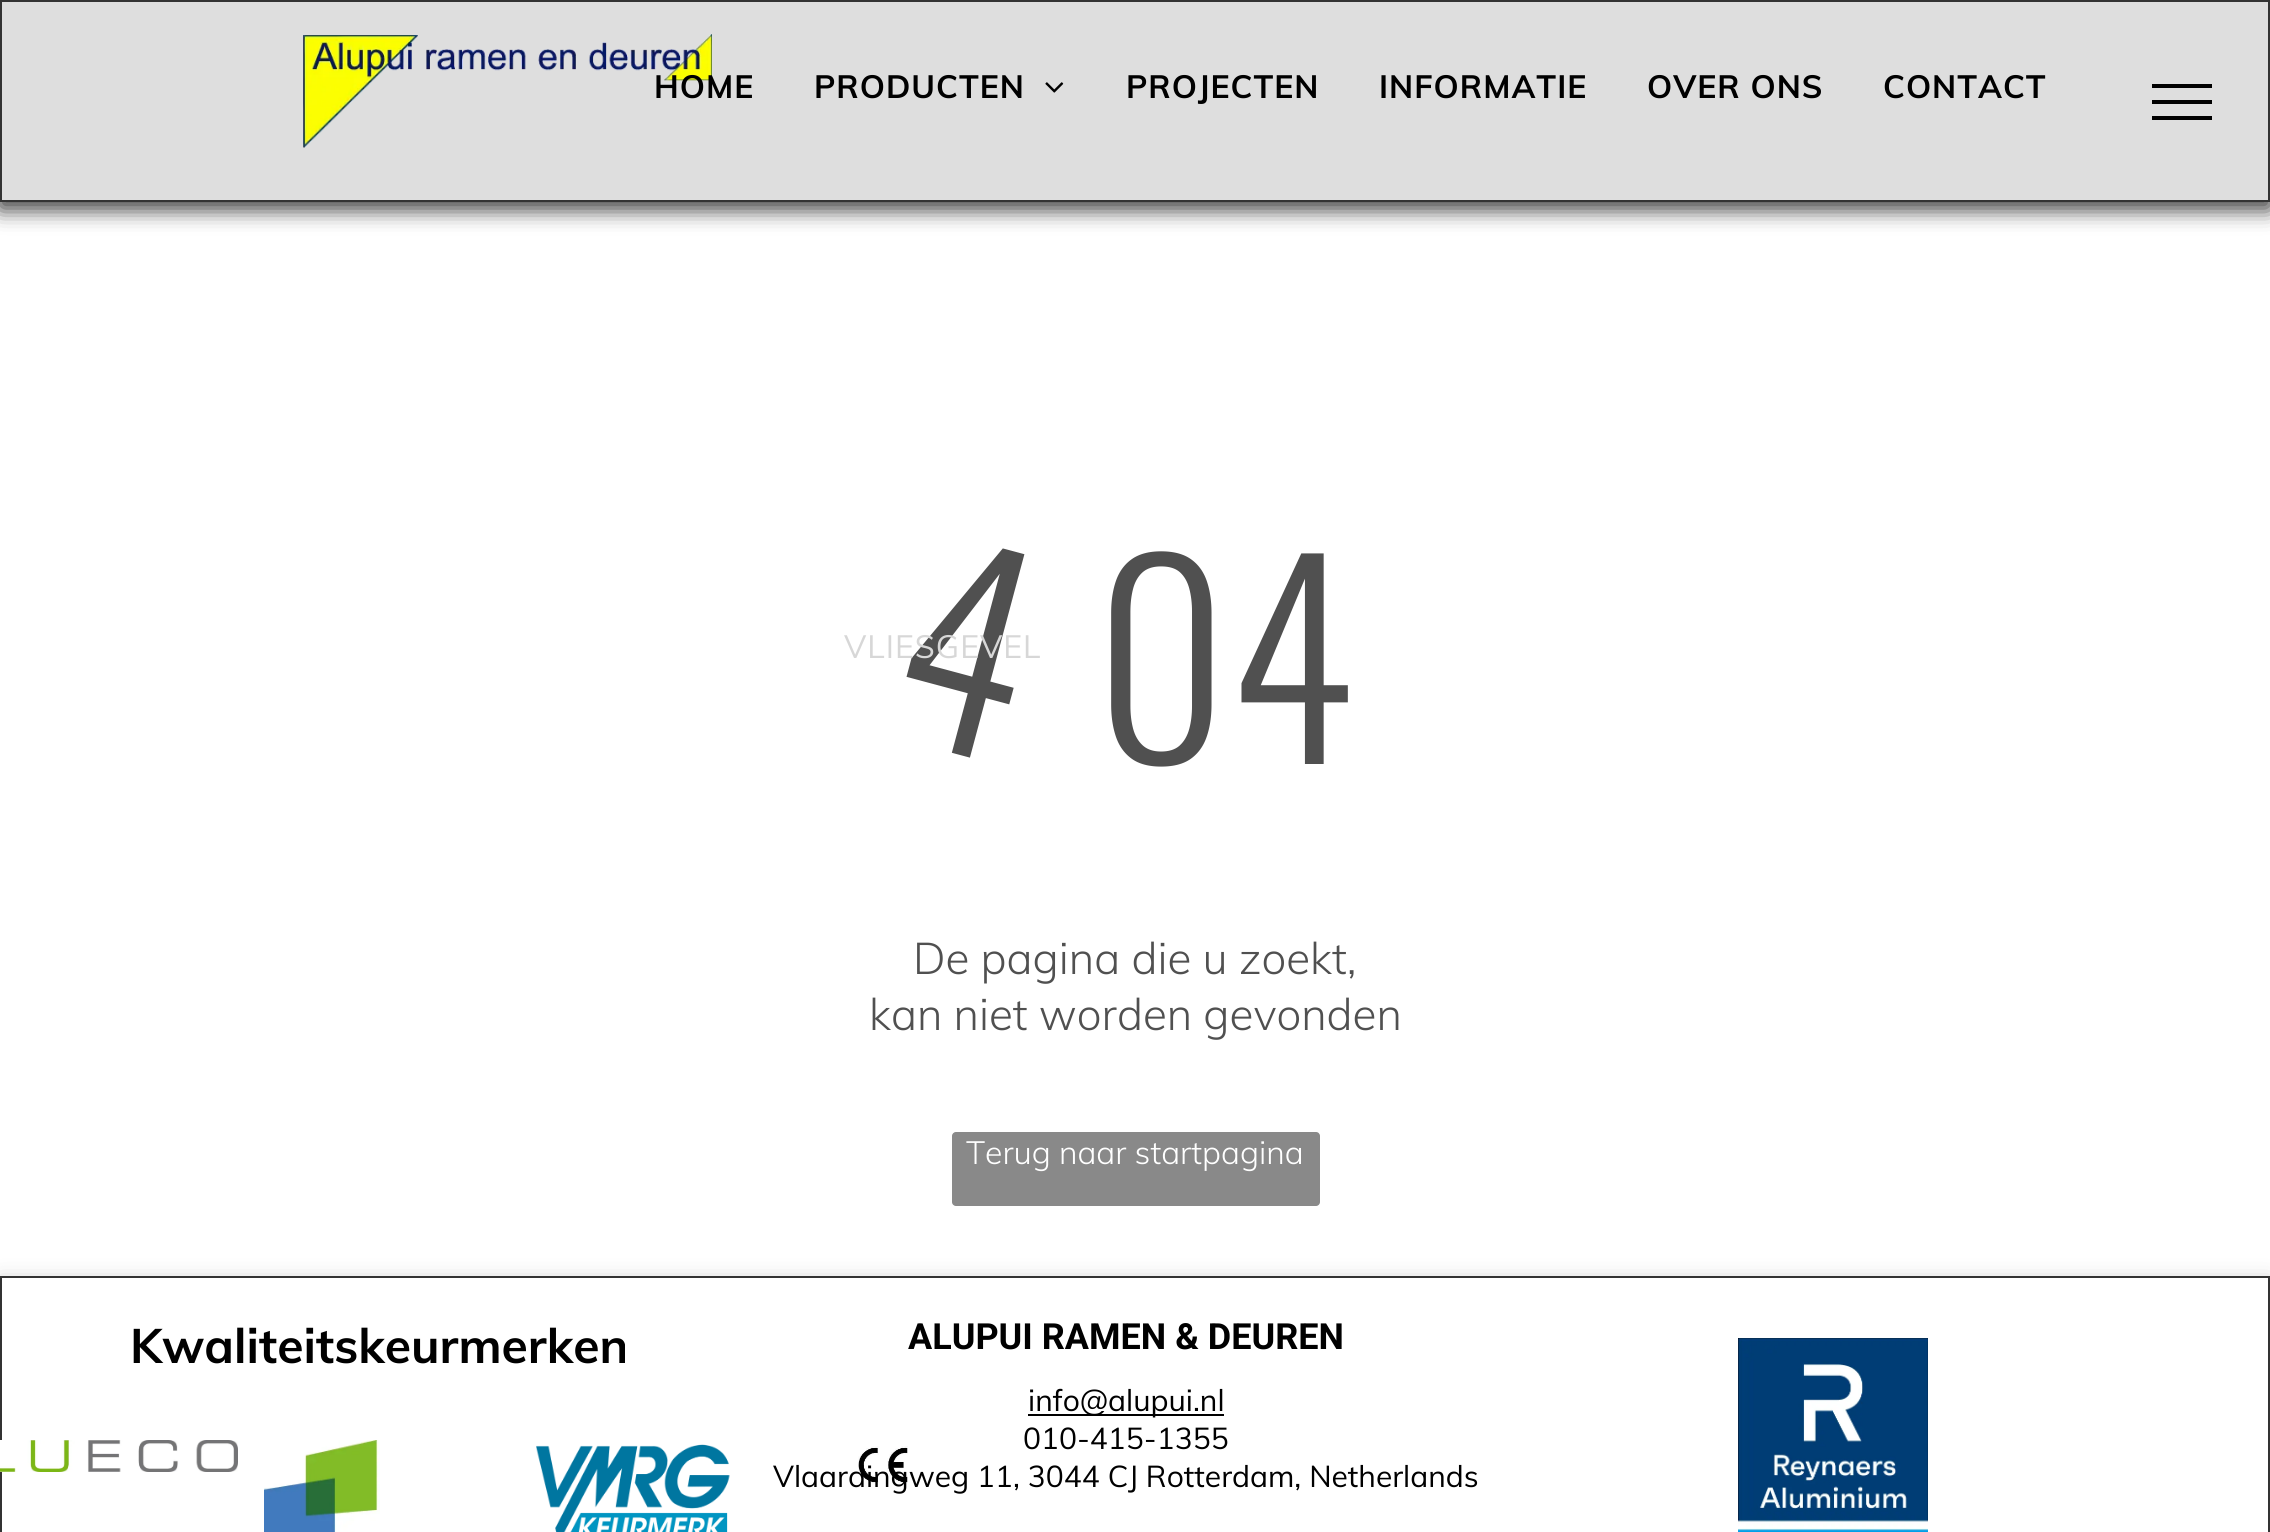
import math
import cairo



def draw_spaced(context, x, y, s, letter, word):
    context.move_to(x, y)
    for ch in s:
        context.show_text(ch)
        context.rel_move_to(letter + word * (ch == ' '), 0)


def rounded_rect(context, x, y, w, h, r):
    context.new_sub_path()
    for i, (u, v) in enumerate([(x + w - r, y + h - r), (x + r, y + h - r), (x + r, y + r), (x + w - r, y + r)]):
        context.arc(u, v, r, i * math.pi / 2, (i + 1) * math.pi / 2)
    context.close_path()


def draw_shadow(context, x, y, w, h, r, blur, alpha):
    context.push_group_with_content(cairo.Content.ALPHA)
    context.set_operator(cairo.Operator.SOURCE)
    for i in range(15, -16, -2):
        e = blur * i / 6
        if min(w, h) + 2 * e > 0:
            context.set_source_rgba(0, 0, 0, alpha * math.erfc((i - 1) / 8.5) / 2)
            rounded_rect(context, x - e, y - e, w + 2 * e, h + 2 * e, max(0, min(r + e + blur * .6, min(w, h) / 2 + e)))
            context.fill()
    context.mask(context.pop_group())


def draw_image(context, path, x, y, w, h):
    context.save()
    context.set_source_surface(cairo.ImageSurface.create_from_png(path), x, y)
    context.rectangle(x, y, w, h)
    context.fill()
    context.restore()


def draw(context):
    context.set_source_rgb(1, 1, 1)
    context.paint()
    context.set_source_rgb(0, 0, 0)
    draw_shadow(context, 0, 6, 2270, 202, 0, 11, 0.25)
    draw_shadow(context, 0, 6, 2270, 202, 0, 11, 0.71)
    context.set_source_rgb(222 / 255, 222 / 255, 222 / 255)
    context.rectangle(1, 1, 2268, 200)
    context.fill_preserve()
    context.set_source_rgb(51 / 255, 51 / 255, 51 / 255)
    context.stroke()
    draw_image(context, "images/1.png", 303, 34, 409, 114)
    draw_image(context, "images/2.png", 1045, 82, 19, 11)
    context.set_source_rgb(0, 0, 0)
    context.rectangle(2152, 84, 60, 4)
    context.fill()
    context.rectangle(2152, 100, 60, 4)
    context.fill()
    context.rectangle(2152, 116, 60, 4)
    context.fill()
    context.set_source_rgb(137 / 255, 137 / 255, 137 / 255)
    rounded_rect(context, 952, 1132, 368, 74, 4)
    context.fill()
    context.set_source_rgb(0, 0, 0)
    draw_shadow(context, 0, 1282, 2270, 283, 0, 11, 0.25)
    context.set_source_rgb(1, 1, 1)
    context.rectangle(1, 1277, 2268, 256)
    context.fill_preserve()
    context.set_source_rgb(51 / 255, 51 / 255, 51 / 255)
    context.stroke()
    draw_image(context, "images/3.png", 0, 1440, 238, 32)
    draw_image(context, "images/4.png", 264, 1440, 116, 92)
    draw_image(context, "images/5.png", 536, 1444, 194, 88)
    draw_image(context, "images/6.png", 858, 1446, 50, 38)
    context.set_source_rgb(0, 0, 0)
    context.rectangle(1028, 1414, 196, 2)
    context.fill()
    draw_image(context, "images/7.png", 1738, 1338, 190, 194)
    context.select_font_face("Muli", cairo.FontSlant.NORMAL, cairo.FontWeight.BOLD)
    context.set_font_size(32)
    draw_spaced(context, 654, 98, "HOME", 1, 0)
    draw_spaced(context, 814, 98, "PRODUCTEN", 1, 0)
    draw_spaced(context, 1126, 98, "PROJECTEN", 1, 0)
    draw_spaced(context, 1379, 98, "INFORMATIE", 1, 0)
    draw_spaced(context, 1647, 98, "OVER ONS", 1, 0)
    draw_spaced(context, 1883, 98, "CONTACT", 1, 0)
    context.select_font_face("Oswald Light")
    context.set_font_size(260)
    context.set_source_rgb(80 / 255, 80 / 255, 80 / 255)
    context.save()
    context.translate(878, 733)
    context.rotate(15 * math.pi / 180)
    context.move_to(0, 0)
    context.show_text("4")
    context.restore()
    context.select_font_face("Muli")
    context.set_font_size(32)
    context.set_source_rgb(215 / 255, 215 / 255, 215 / 255)
    draw_spaced(context, 844, 658, "VLIESGEVEL", 1, 0)
    context.select_font_face("Oswald Light")
    context.set_font_size(260)
    context.set_source_rgb(80 / 255, 80 / 255, 80 / 255)
    context.move_to(1094, 764)
    context.show_text("04")
    context.select_font_face("Muli Light")
    context.set_font_size(44)
    context.move_to(913, 974)
    context.show_text("De pagina die u zoekt,")
    context.move_to(869, 1030)
    context.show_text("kan niet worden gevonden")
    context.set_font_size(32)
    context.set_source_rgb(1, 1, 1)
    context.move_to(966, 1164)
    context.show_text("Terug naar startpagina")
    context.select_font_face("Muli", cairo.FontSlant.NORMAL, cairo.FontWeight.BOLD)
    context.set_font_size(48)
    context.set_source_rgb(0, 0, 0)
    context.move_to(130, 1363)
    context.show_text("Kwaliteitskeurmerken")
    context.select_font_face("Roboto", cairo.FontSlant.NORMAL, cairo.FontWeight.BOLD)
    context.set_font_size(36)
    context.move_to(908, 1349)
    context.show_text("ALUPUI RAMEN & DEUREN")
    context.select_font_face("Muli")
    context.set_font_size(30)
    context.move_to(1028, 1411)
    context.show_text("info@alupui.nl")
    context.move_to(1023, 1449)
    context.show_text("010-415-1355")
    context.move_to(773, 1487)
    context.show_text("Vlaardingweg 11, 3044 CJ Rotterdam, Netherlands")


surface = cairo.ImageSurface(cairo.Format.RGB24, 2270, 1532)
context = cairo.Context(surface)
options = cairo.FontOptions()
options.set_hint_metrics(cairo.HintMetrics.OFF)
options.set_hint_style(cairo.HintStyle.NONE)
context.set_font_options(options)
context.set_miter_limit(4)
draw(context)
surface.write_to_png("out.png")
